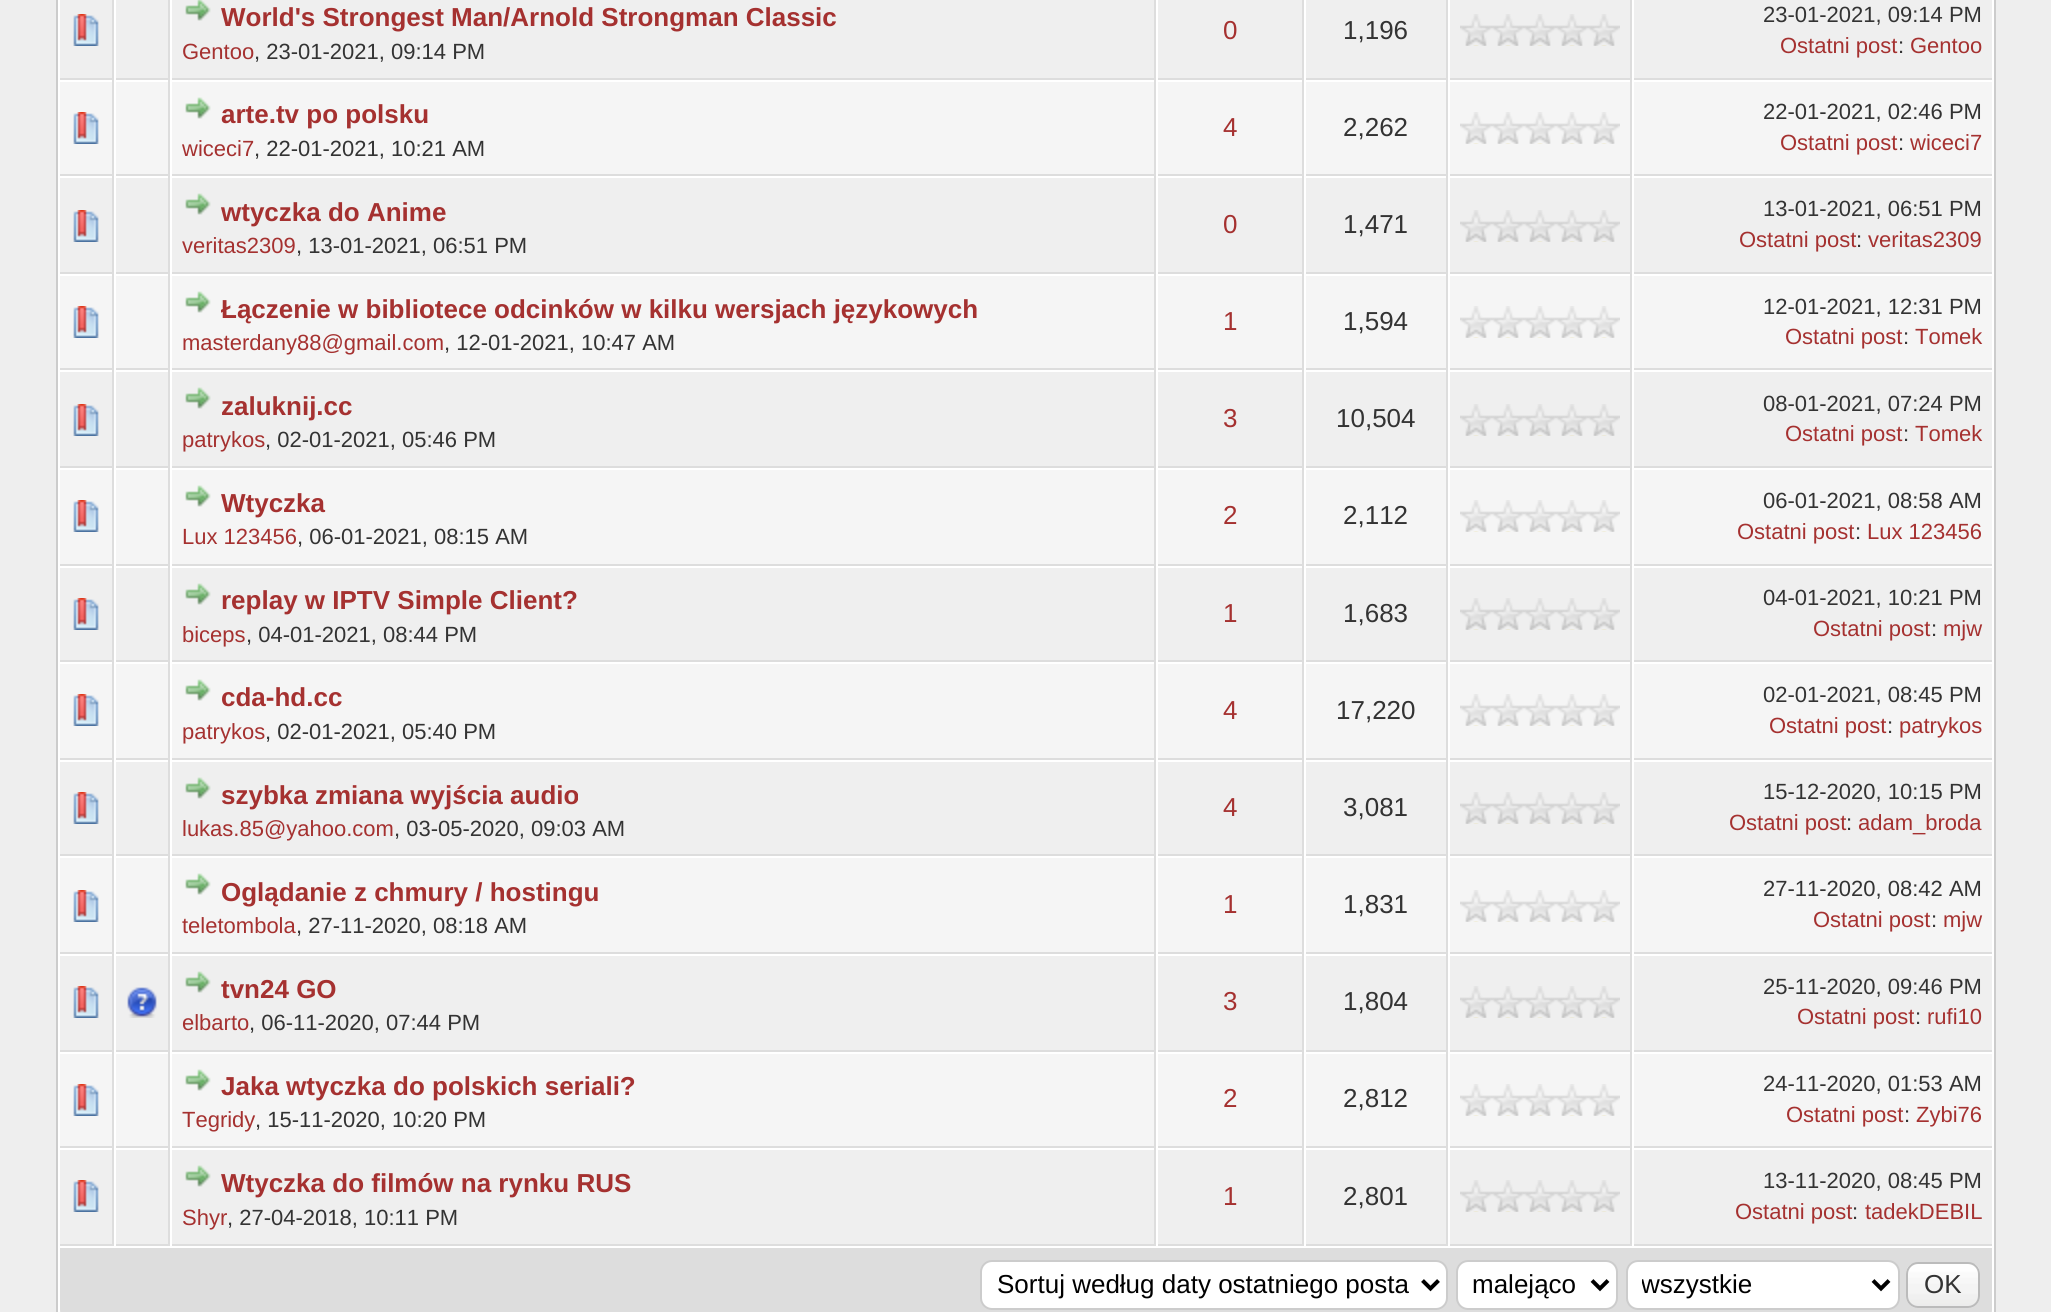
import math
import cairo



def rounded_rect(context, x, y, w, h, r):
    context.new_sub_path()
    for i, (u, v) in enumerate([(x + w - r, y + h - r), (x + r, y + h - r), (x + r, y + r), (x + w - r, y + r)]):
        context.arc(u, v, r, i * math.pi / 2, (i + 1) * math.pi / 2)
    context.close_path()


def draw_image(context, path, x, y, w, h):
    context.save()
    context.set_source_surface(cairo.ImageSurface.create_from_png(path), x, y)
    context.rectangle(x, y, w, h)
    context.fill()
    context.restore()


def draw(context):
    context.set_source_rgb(238 / 255, 238 / 255, 238 / 255)
    context.paint()
    context.set_source_rgb(1, 1, 1)
    context.rectangle(57, -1, 1938, 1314)
    context.fill_preserve()
    context.set_source_rgb(204 / 255, 204 / 255, 204 / 255)
    context.stroke()
    context.set_source_rgb(239 / 255, 239 / 255, 239 / 255)
    context.rectangle(60, 0, 52, 78)
    context.fill()
    context.set_source_rgb(221 / 255, 221 / 255, 221 / 255)
    context.rectangle(112, 0, 2, 1246)
    context.fill()
    context.rectangle(60, 78, 54, 2)
    context.fill()
    draw_image(context, "images/1.png", 73, 14, 26, 32)
    context.set_source_rgb(239 / 255, 239 / 255, 239 / 255)
    context.rectangle(116, 0, 52, 78)
    context.fill()
    context.set_source_rgb(221 / 255, 221 / 255, 221 / 255)
    context.rectangle(168, 0, 2, 1246)
    context.fill()
    context.rectangle(114, 78, 56, 2)
    context.fill()
    context.set_source_rgb(1, 1, 1)
    context.rectangle(114, 78, 2, 2)
    context.fill()
    context.set_source_rgb(239 / 255, 239 / 255, 239 / 255)
    context.rectangle(1450, 0, 180, 78)
    context.fill()
    context.set_source_rgb(221 / 255, 221 / 255, 221 / 255)
    context.rectangle(1630, 0, 2, 1246)
    context.fill()
    context.rectangle(1448, 78, 544, 2)
    context.fill()
    context.set_source_rgb(1, 1, 1)
    context.rectangle(1448, 78, 2, 2)
    context.fill()
    draw_image(context, "images/2.png", 1460, 14, 160, 32)
    context.set_source_rgb(239 / 255, 239 / 255, 239 / 255)
    context.rectangle(172, 0, 982, 78)
    context.fill()
    context.set_source_rgb(221 / 255, 221 / 255, 221 / 255)
    context.rectangle(1154, 0, 2, 1246)
    context.fill()
    context.rectangle(170, 78, 986, 2)
    context.fill()
    context.set_source_rgb(1, 1, 1)
    context.rectangle(170, 78, 2, 2)
    context.fill()
    draw_image(context, "images/3.png", 185, 0, 26, 21)
    context.set_source_rgb(239 / 255, 239 / 255, 239 / 255)
    context.rectangle(1158, 0, 144, 78)
    context.fill()
    context.set_source_rgb(221 / 255, 221 / 255, 221 / 255)
    context.rectangle(1302, 0, 2, 1246)
    context.fill()
    context.rectangle(1156, 78, 148, 2)
    context.fill()
    context.set_source_rgb(1, 1, 1)
    context.rectangle(1156, 78, 2, 2)
    context.fill()
    context.set_source_rgb(239 / 255, 239 / 255, 239 / 255)
    context.rectangle(1306, 0, 140, 78)
    context.fill()
    context.set_source_rgb(221 / 255, 221 / 255, 221 / 255)
    context.rectangle(1446, 0, 2, 1246)
    context.fill()
    context.rectangle(1304, 78, 144, 2)
    context.fill()
    context.set_source_rgb(1, 1, 1)
    context.rectangle(1304, 78, 2, 2)
    context.fill()
    context.set_source_rgb(239 / 255, 239 / 255, 239 / 255)
    context.rectangle(1634, 0, 358, 78)
    context.fill()
    context.set_source_rgb(1, 1, 1)
    context.rectangle(1632, 78, 2, 2)
    context.fill()
    context.set_source_rgb(245 / 255, 245 / 255, 245 / 255)
    context.rectangle(60, 82, 52, 92)
    context.fill()
    context.set_source_rgb(221 / 255, 221 / 255, 221 / 255)
    context.rectangle(60, 174, 1932, 2)
    context.fill()
    draw_image(context, "images/4.png", 73, 112, 26, 32)
    context.set_source_rgb(245 / 255, 245 / 255, 245 / 255)
    context.rectangle(116, 82, 52, 92)
    context.fill()
    context.set_source_rgb(1, 1, 1)
    context.rectangle(114, 174, 2, 2)
    context.fill()
    context.set_source_rgb(245 / 255, 245 / 255, 245 / 255)
    context.rectangle(172, 82, 982, 92)
    context.fill()
    context.set_source_rgb(1, 1, 1)
    context.rectangle(170, 174, 2, 2)
    context.fill()
    draw_image(context, "images/5.png", 185, 97, 26, 22)
    context.set_source_rgb(245 / 255, 245 / 255, 245 / 255)
    context.rectangle(1158, 82, 144, 92)
    context.fill()
    context.set_source_rgb(1, 1, 1)
    context.rectangle(1156, 174, 2, 2)
    context.fill()
    context.set_source_rgb(245 / 255, 245 / 255, 245 / 255)
    context.rectangle(1306, 82, 140, 92)
    context.fill()
    context.set_source_rgb(1, 1, 1)
    context.rectangle(1304, 174, 2, 2)
    context.fill()
    context.set_source_rgb(245 / 255, 245 / 255, 245 / 255)
    context.rectangle(1450, 82, 180, 92)
    context.fill()
    context.set_source_rgb(1, 1, 1)
    context.rectangle(1448, 174, 2, 2)
    context.fill()
    draw_image(context, "images/6.png", 1460, 112, 160, 32)
    context.set_source_rgb(245 / 255, 245 / 255, 245 / 255)
    context.rectangle(1634, 82, 358, 92)
    context.fill()
    context.set_source_rgb(1, 1, 1)
    context.rectangle(1632, 174, 2, 2)
    context.fill()
    context.set_source_rgb(239 / 255, 239 / 255, 239 / 255)
    context.rectangle(60, 178, 52, 94)
    context.fill()
    context.set_source_rgb(221 / 255, 221 / 255, 221 / 255)
    context.rectangle(60, 272, 1932, 2)
    context.fill()
    draw_image(context, "images/1.png", 73, 210, 26, 32)
    context.set_source_rgb(239 / 255, 239 / 255, 239 / 255)
    context.rectangle(116, 178, 52, 94)
    context.fill()
    context.set_source_rgb(1, 1, 1)
    context.rectangle(114, 272, 2, 2)
    context.fill()
    context.set_source_rgb(239 / 255, 239 / 255, 239 / 255)
    context.rectangle(172, 178, 982, 94)
    context.fill()
    context.set_source_rgb(1, 1, 1)
    context.rectangle(170, 272, 2, 2)
    context.fill()
    draw_image(context, "images/7.png", 185, 193, 26, 22)
    context.set_source_rgb(239 / 255, 239 / 255, 239 / 255)
    context.rectangle(1158, 178, 144, 94)
    context.fill()
    context.set_source_rgb(1, 1, 1)
    context.rectangle(1156, 272, 2, 2)
    context.fill()
    context.set_source_rgb(239 / 255, 239 / 255, 239 / 255)
    context.rectangle(1306, 178, 140, 94)
    context.fill()
    context.set_source_rgb(1, 1, 1)
    context.rectangle(1304, 272, 2, 2)
    context.fill()
    context.set_source_rgb(239 / 255, 239 / 255, 239 / 255)
    context.rectangle(1450, 178, 180, 94)
    context.fill()
    context.set_source_rgb(1, 1, 1)
    context.rectangle(1448, 272, 2, 2)
    context.fill()
    draw_image(context, "images/2.png", 1460, 210, 160, 32)
    context.set_source_rgb(239 / 255, 239 / 255, 239 / 255)
    context.rectangle(1634, 178, 358, 94)
    context.fill()
    context.set_source_rgb(1, 1, 1)
    context.rectangle(1632, 272, 2, 2)
    context.fill()
    context.set_source_rgb(245 / 255, 245 / 255, 245 / 255)
    context.rectangle(60, 276, 52, 92)
    context.fill()
    context.set_source_rgb(221 / 255, 221 / 255, 221 / 255)
    context.rectangle(60, 368, 1932, 2)
    context.fill()
    draw_image(context, "images/4.png", 73, 306, 26, 32)
    context.set_source_rgb(245 / 255, 245 / 255, 245 / 255)
    context.rectangle(116, 276, 52, 92)
    context.fill()
    context.set_source_rgb(1, 1, 1)
    context.rectangle(114, 368, 2, 2)
    context.fill()
    context.set_source_rgb(245 / 255, 245 / 255, 245 / 255)
    context.rectangle(172, 276, 982, 92)
    context.fill()
    context.set_source_rgb(1, 1, 1)
    context.rectangle(170, 368, 2, 2)
    context.fill()
    draw_image(context, "images/5.png", 185, 291, 26, 22)
    context.set_source_rgb(245 / 255, 245 / 255, 245 / 255)
    context.rectangle(1158, 276, 144, 92)
    context.fill()
    context.set_source_rgb(1, 1, 1)
    context.rectangle(1156, 368, 2, 2)
    context.fill()
    context.set_source_rgb(245 / 255, 245 / 255, 245 / 255)
    context.rectangle(1306, 276, 140, 92)
    context.fill()
    context.set_source_rgb(1, 1, 1)
    context.rectangle(1304, 368, 2, 2)
    context.fill()
    context.set_source_rgb(245 / 255, 245 / 255, 245 / 255)
    context.rectangle(1450, 276, 180, 92)
    context.fill()
    context.set_source_rgb(1, 1, 1)
    context.rectangle(1448, 368, 2, 2)
    context.fill()
    draw_image(context, "images/6.png", 1460, 306, 160, 32)
    context.set_source_rgb(245 / 255, 245 / 255, 245 / 255)
    context.rectangle(1634, 276, 358, 92)
    context.fill()
    context.set_source_rgb(1, 1, 1)
    context.rectangle(1632, 368, 2, 2)
    context.fill()
    context.set_source_rgb(239 / 255, 239 / 255, 239 / 255)
    context.rectangle(60, 372, 52, 94)
    context.fill()
    context.set_source_rgb(221 / 255, 221 / 255, 221 / 255)
    context.rectangle(60, 466, 1932, 2)
    context.fill()
    draw_image(context, "images/1.png", 73, 404, 26, 32)
    context.set_source_rgb(239 / 255, 239 / 255, 239 / 255)
    context.rectangle(116, 372, 52, 94)
    context.fill()
    context.set_source_rgb(1, 1, 1)
    context.rectangle(114, 466, 2, 2)
    context.fill()
    context.set_source_rgb(239 / 255, 239 / 255, 239 / 255)
    context.rectangle(172, 372, 982, 94)
    context.fill()
    context.set_source_rgb(1, 1, 1)
    context.rectangle(170, 466, 2, 2)
    context.fill()
    draw_image(context, "images/7.png", 185, 387, 26, 22)
    context.set_source_rgb(239 / 255, 239 / 255, 239 / 255)
    context.rectangle(1158, 372, 144, 94)
    context.fill()
    context.set_source_rgb(1, 1, 1)
    context.rectangle(1156, 466, 2, 2)
    context.fill()
    context.set_source_rgb(239 / 255, 239 / 255, 239 / 255)
    context.rectangle(1306, 372, 140, 94)
    context.fill()
    context.set_source_rgb(1, 1, 1)
    context.rectangle(1304, 466, 2, 2)
    context.fill()
    context.set_source_rgb(239 / 255, 239 / 255, 239 / 255)
    context.rectangle(1450, 372, 180, 94)
    context.fill()
    context.set_source_rgb(1, 1, 1)
    context.rectangle(1448, 466, 2, 2)
    context.fill()
    draw_image(context, "images/2.png", 1460, 404, 160, 32)
    context.set_source_rgb(239 / 255, 239 / 255, 239 / 255)
    context.rectangle(1634, 372, 358, 94)
    context.fill()
    context.set_source_rgb(1, 1, 1)
    context.rectangle(1632, 466, 2, 2)
    context.fill()
    context.set_source_rgb(245 / 255, 245 / 255, 245 / 255)
    context.rectangle(60, 470, 52, 94)
    context.fill()
    context.set_source_rgb(221 / 255, 221 / 255, 221 / 255)
    context.rectangle(60, 564, 1932, 2)
    context.fill()
    draw_image(context, "images/4.png", 73, 500, 26, 32)
    context.set_source_rgb(245 / 255, 245 / 255, 245 / 255)
    context.rectangle(116, 470, 52, 94)
    context.fill()
    context.set_source_rgb(1, 1, 1)
    context.rectangle(114, 564, 2, 2)
    context.fill()
    context.set_source_rgb(245 / 255, 245 / 255, 245 / 255)
    context.rectangle(172, 470, 982, 94)
    context.fill()
    context.set_source_rgb(1, 1, 1)
    context.rectangle(170, 564, 2, 2)
    context.fill()
    draw_image(context, "images/5.png", 185, 485, 26, 22)
    context.set_source_rgb(245 / 255, 245 / 255, 245 / 255)
    context.rectangle(1158, 470, 144, 94)
    context.fill()
    context.set_source_rgb(1, 1, 1)
    context.rectangle(1156, 564, 2, 2)
    context.fill()
    context.set_source_rgb(245 / 255, 245 / 255, 245 / 255)
    context.rectangle(1306, 470, 140, 94)
    context.fill()
    context.set_source_rgb(1, 1, 1)
    context.rectangle(1304, 564, 2, 2)
    context.fill()
    context.set_source_rgb(245 / 255, 245 / 255, 245 / 255)
    context.rectangle(1450, 470, 180, 94)
    context.fill()
    context.set_source_rgb(1, 1, 1)
    context.rectangle(1448, 564, 2, 2)
    context.fill()
    draw_image(context, "images/6.png", 1460, 500, 160, 32)
    context.set_source_rgb(245 / 255, 245 / 255, 245 / 255)
    context.rectangle(1634, 470, 358, 94)
    context.fill()
    context.set_source_rgb(1, 1, 1)
    context.rectangle(1632, 564, 2, 2)
    context.fill()
    context.set_source_rgb(239 / 255, 239 / 255, 239 / 255)
    context.rectangle(60, 568, 52, 92)
    context.fill()
    context.set_source_rgb(221 / 255, 221 / 255, 221 / 255)
    context.rectangle(60, 660, 1932, 2)
    context.fill()
    draw_image(context, "images/1.png", 73, 598, 26, 32)
    context.set_source_rgb(239 / 255, 239 / 255, 239 / 255)
    context.rectangle(116, 568, 52, 92)
    context.fill()
    context.set_source_rgb(1, 1, 1)
    context.rectangle(114, 660, 2, 2)
    context.fill()
    context.set_source_rgb(239 / 255, 239 / 255, 239 / 255)
    context.rectangle(172, 568, 982, 92)
    context.fill()
    context.set_source_rgb(1, 1, 1)
    context.rectangle(170, 660, 2, 2)
    context.fill()
    draw_image(context, "images/7.png", 185, 583, 26, 22)
    context.set_source_rgb(239 / 255, 239 / 255, 239 / 255)
    context.rectangle(1158, 568, 144, 92)
    context.fill()
    context.set_source_rgb(1, 1, 1)
    context.rectangle(1156, 660, 2, 2)
    context.fill()
    context.set_source_rgb(239 / 255, 239 / 255, 239 / 255)
    context.rectangle(1306, 568, 140, 92)
    context.fill()
    context.set_source_rgb(1, 1, 1)
    context.rectangle(1304, 660, 2, 2)
    context.fill()
    context.set_source_rgb(239 / 255, 239 / 255, 239 / 255)
    context.rectangle(1450, 568, 180, 92)
    context.fill()
    context.set_source_rgb(1, 1, 1)
    context.rectangle(1448, 660, 2, 2)
    context.fill()
    draw_image(context, "images/2.png", 1460, 598, 160, 32)
    context.set_source_rgb(239 / 255, 239 / 255, 239 / 255)
    context.rectangle(1634, 568, 358, 92)
    context.fill()
    context.set_source_rgb(1, 1, 1)
    context.rectangle(1632, 660, 2, 2)
    context.fill()
    context.set_source_rgb(245 / 255, 245 / 255, 245 / 255)
    context.rectangle(60, 664, 52, 94)
    context.fill()
    context.set_source_rgb(221 / 255, 221 / 255, 221 / 255)
    context.rectangle(60, 758, 1932, 2)
    context.fill()
    draw_image(context, "images/4.png", 73, 694, 26, 32)
    context.set_source_rgb(245 / 255, 245 / 255, 245 / 255)
    context.rectangle(116, 664, 52, 94)
    context.fill()
    context.set_source_rgb(1, 1, 1)
    context.rectangle(114, 758, 2, 2)
    context.fill()
    context.set_source_rgb(245 / 255, 245 / 255, 245 / 255)
    context.rectangle(172, 664, 982, 94)
    context.fill()
    context.set_source_rgb(1, 1, 1)
    context.rectangle(170, 758, 2, 2)
    context.fill()
    draw_image(context, "images/5.png", 185, 679, 26, 22)
    context.set_source_rgb(245 / 255, 245 / 255, 245 / 255)
    context.rectangle(1158, 664, 144, 94)
    context.fill()
    context.set_source_rgb(1, 1, 1)
    context.rectangle(1156, 758, 2, 2)
    context.fill()
    context.set_source_rgb(245 / 255, 245 / 255, 245 / 255)
    context.rectangle(1306, 664, 140, 94)
    context.fill()
    context.set_source_rgb(1, 1, 1)
    context.rectangle(1304, 758, 2, 2)
    context.fill()
    context.set_source_rgb(245 / 255, 245 / 255, 245 / 255)
    context.rectangle(1450, 664, 180, 94)
    context.fill()
    context.set_source_rgb(1, 1, 1)
    context.rectangle(1448, 758, 2, 2)
    context.fill()
    draw_image(context, "images/6.png", 1460, 694, 160, 32)
    context.set_source_rgb(245 / 255, 245 / 255, 245 / 255)
    context.rectangle(1634, 664, 358, 94)
    context.fill()
    context.set_source_rgb(1, 1, 1)
    context.rectangle(1632, 758, 2, 2)
    context.fill()
    context.set_source_rgb(239 / 255, 239 / 255, 239 / 255)
    context.rectangle(60, 762, 52, 92)
    context.fill()
    context.set_source_rgb(221 / 255, 221 / 255, 221 / 255)
    context.rectangle(60, 854, 1932, 2)
    context.fill()
    draw_image(context, "images/1.png", 73, 792, 26, 32)
    context.set_source_rgb(239 / 255, 239 / 255, 239 / 255)
    context.rectangle(116, 762, 52, 92)
    context.fill()
    context.set_source_rgb(1, 1, 1)
    context.rectangle(114, 854, 2, 2)
    context.fill()
    context.set_source_rgb(239 / 255, 239 / 255, 239 / 255)
    context.rectangle(172, 762, 982, 92)
    context.fill()
    context.set_source_rgb(1, 1, 1)
    context.rectangle(170, 854, 2, 2)
    context.fill()
    draw_image(context, "images/7.png", 185, 777, 26, 22)
    context.set_source_rgb(239 / 255, 239 / 255, 239 / 255)
    context.rectangle(1158, 762, 144, 92)
    context.fill()
    context.set_source_rgb(1, 1, 1)
    context.rectangle(1156, 854, 2, 2)
    context.fill()
    context.set_source_rgb(239 / 255, 239 / 255, 239 / 255)
    context.rectangle(1306, 762, 140, 92)
    context.fill()
    context.set_source_rgb(1, 1, 1)
    context.rectangle(1304, 854, 2, 2)
    context.fill()
    context.set_source_rgb(239 / 255, 239 / 255, 239 / 255)
    context.rectangle(1450, 762, 180, 92)
    context.fill()
    context.set_source_rgb(1, 1, 1)
    context.rectangle(1448, 854, 2, 2)
    context.fill()
    draw_image(context, "images/2.png", 1460, 792, 160, 32)
    context.set_source_rgb(239 / 255, 239 / 255, 239 / 255)
    context.rectangle(1634, 762, 358, 92)
    context.fill()
    context.set_source_rgb(1, 1, 1)
    context.rectangle(1632, 854, 2, 2)
    context.fill()
    context.set_source_rgb(245 / 255, 245 / 255, 245 / 255)
    context.rectangle(60, 858, 52, 94)
    context.fill()
    context.set_source_rgb(221 / 255, 221 / 255, 221 / 255)
    context.rectangle(60, 952, 1932, 2)
    context.fill()
    draw_image(context, "images/4.png", 73, 890, 26, 32)
    context.set_source_rgb(245 / 255, 245 / 255, 245 / 255)
    context.rectangle(116, 858, 52, 94)
    context.fill()
    context.set_source_rgb(1, 1, 1)
    context.rectangle(114, 952, 2, 2)
    context.fill()
    context.set_source_rgb(245 / 255, 245 / 255, 245 / 255)
    context.rectangle(172, 858, 982, 94)
    context.fill()
    context.set_source_rgb(1, 1, 1)
    context.rectangle(170, 952, 2, 2)
    context.fill()
    draw_image(context, "images/5.png", 185, 873, 26, 22)
    context.set_source_rgb(245 / 255, 245 / 255, 245 / 255)
    context.rectangle(1158, 858, 144, 94)
    context.fill()
    context.set_source_rgb(1, 1, 1)
    context.rectangle(1156, 952, 2, 2)
    context.fill()
    context.set_source_rgb(245 / 255, 245 / 255, 245 / 255)
    context.rectangle(1306, 858, 140, 94)
    context.fill()
    context.set_source_rgb(1, 1, 1)
    context.rectangle(1304, 952, 2, 2)
    context.fill()
    context.set_source_rgb(245 / 255, 245 / 255, 245 / 255)
    context.rectangle(1450, 858, 180, 94)
    context.fill()
    context.set_source_rgb(1, 1, 1)
    context.rectangle(1448, 952, 2, 2)
    context.fill()
    draw_image(context, "images/6.png", 1460, 890, 160, 32)
    context.set_source_rgb(245 / 255, 245 / 255, 245 / 255)
    context.rectangle(1634, 858, 358, 94)
    context.fill()
    context.set_source_rgb(1, 1, 1)
    context.rectangle(1632, 952, 2, 2)
    context.fill()
    context.set_source_rgb(239 / 255, 239 / 255, 239 / 255)
    context.rectangle(60, 956, 52, 94)
    context.fill()
    context.set_source_rgb(221 / 255, 221 / 255, 221 / 255)
    context.rectangle(60, 1050, 1932, 2)
    context.fill()
    draw_image(context, "images/1.png", 73, 986, 26, 32)
    context.set_source_rgb(239 / 255, 239 / 255, 239 / 255)
    context.rectangle(116, 956, 52, 94)
    context.fill()
    context.set_source_rgb(1, 1, 1)
    context.rectangle(114, 1050, 2, 2)
    context.fill()
    draw_image(context, "images/8.png", 127, 987, 30, 31)
    context.set_source_rgb(239 / 255, 239 / 255, 239 / 255)
    context.rectangle(172, 956, 982, 94)
    context.fill()
    context.set_source_rgb(1, 1, 1)
    context.rectangle(170, 1050, 2, 2)
    context.fill()
    draw_image(context, "images/7.png", 185, 971, 26, 22)
    context.set_source_rgb(239 / 255, 239 / 255, 239 / 255)
    context.rectangle(1158, 956, 144, 94)
    context.fill()
    context.set_source_rgb(1, 1, 1)
    context.rectangle(1156, 1050, 2, 2)
    context.fill()
    context.set_source_rgb(239 / 255, 239 / 255, 239 / 255)
    context.rectangle(1306, 956, 140, 94)
    context.fill()
    context.set_source_rgb(1, 1, 1)
    context.rectangle(1304, 1050, 2, 2)
    context.fill()
    context.set_source_rgb(239 / 255, 239 / 255, 239 / 255)
    context.rectangle(1450, 956, 180, 94)
    context.fill()
    context.set_source_rgb(1, 1, 1)
    context.rectangle(1448, 1050, 2, 2)
    context.fill()
    draw_image(context, "images/2.png", 1460, 986, 160, 32)
    context.set_source_rgb(239 / 255, 239 / 255, 239 / 255)
    context.rectangle(1634, 956, 358, 94)
    context.fill()
    context.set_source_rgb(1, 1, 1)
    context.rectangle(1632, 1050, 2, 2)
    context.fill()
    context.set_source_rgb(245 / 255, 245 / 255, 245 / 255)
    context.rectangle(60, 1054, 52, 92)
    context.fill()
    context.set_source_rgb(221 / 255, 221 / 255, 221 / 255)
    context.rectangle(60, 1146, 1932, 2)
    context.fill()
    draw_image(context, "images/4.png", 73, 1084, 26, 32)
    context.set_source_rgb(245 / 255, 245 / 255, 245 / 255)
    context.rectangle(116, 1054, 52, 92)
    context.fill()
    context.set_source_rgb(1, 1, 1)
    context.rectangle(114, 1146, 2, 2)
    context.fill()
    context.set_source_rgb(245 / 255, 245 / 255, 245 / 255)
    context.rectangle(172, 1054, 982, 92)
    context.fill()
    context.set_source_rgb(1, 1, 1)
    context.rectangle(170, 1146, 2, 2)
    context.fill()
    draw_image(context, "images/5.png", 185, 1069, 26, 22)
    context.set_source_rgb(245 / 255, 245 / 255, 245 / 255)
    context.rectangle(1158, 1054, 144, 92)
    context.fill()
    context.set_source_rgb(1, 1, 1)
    context.rectangle(1156, 1146, 2, 2)
    context.fill()
    context.set_source_rgb(245 / 255, 245 / 255, 245 / 255)
    context.rectangle(1306, 1054, 140, 92)
    context.fill()
    context.set_source_rgb(1, 1, 1)
    context.rectangle(1304, 1146, 2, 2)
    context.fill()
    context.set_source_rgb(245 / 255, 245 / 255, 245 / 255)
    context.rectangle(1450, 1054, 180, 92)
    context.fill()
    context.set_source_rgb(1, 1, 1)
    context.rectangle(1448, 1146, 2, 2)
    context.fill()
    draw_image(context, "images/6.png", 1460, 1084, 160, 32)
    context.set_source_rgb(245 / 255, 245 / 255, 245 / 255)
    context.rectangle(1634, 1054, 358, 92)
    context.fill()
    context.set_source_rgb(1, 1, 1)
    context.rectangle(1632, 1146, 2, 2)
    context.fill()
    context.set_source_rgb(239 / 255, 239 / 255, 239 / 255)
    context.rectangle(60, 1150, 52, 94)
    context.fill()
    context.set_source_rgb(221 / 255, 221 / 255, 221 / 255)
    context.rectangle(60, 1244, 1932, 2)
    context.fill()
    draw_image(context, "images/1.png", 73, 1180, 26, 32)
    context.set_source_rgb(239 / 255, 239 / 255, 239 / 255)
    context.rectangle(116, 1150, 52, 94)
    context.fill()
    context.set_source_rgb(1, 1, 1)
    context.rectangle(114, 1244, 2, 2)
    context.fill()
    context.set_source_rgb(239 / 255, 239 / 255, 239 / 255)
    context.rectangle(172, 1150, 982, 94)
    context.fill()
    context.set_source_rgb(1, 1, 1)
    context.rectangle(170, 1244, 2, 2)
    context.fill()
    draw_image(context, "images/7.png", 185, 1165, 26, 22)
    context.set_source_rgb(239 / 255, 239 / 255, 239 / 255)
    context.rectangle(1158, 1150, 144, 94)
    context.fill()
    context.set_source_rgb(1, 1, 1)
    context.rectangle(1156, 1244, 2, 2)
    context.fill()
    context.set_source_rgb(239 / 255, 239 / 255, 239 / 255)
    context.rectangle(1306, 1150, 140, 94)
    context.fill()
    context.set_source_rgb(1, 1, 1)
    context.rectangle(1304, 1244, 2, 2)
    context.fill()
    context.set_source_rgb(239 / 255, 239 / 255, 239 / 255)
    context.rectangle(1450, 1150, 180, 94)
    context.fill()
    context.set_source_rgb(1, 1, 1)
    context.rectangle(1448, 1244, 2, 2)
    context.fill()
    draw_image(context, "images/2.png", 1460, 1180, 160, 32)
    context.set_source_rgb(239 / 255, 239 / 255, 239 / 255)
    context.rectangle(1634, 1150, 358, 94)
    context.fill()
    context.set_source_rgb(1, 1, 1)
    context.rectangle(1632, 1244, 2, 2)
    context.fill()
    context.set_source_rgb(221 / 255, 221 / 255, 221 / 255)
    context.new_path()
    context.move_to(60, 1246)
    context.line_to(1992, 1246)
    context.line_to(1992, 1310)
    context.curve_to(1992, 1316.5, 1986.5, 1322, 1980, 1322)
    context.line_to(72, 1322)
    context.curve_to(65.5, 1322, 60, 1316.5, 60, 1310)
    context.close_path()
    context.fill()
    context.set_source_rgb(1, 1, 1)
    context.rectangle(60, 1246, 1932, 2)
    context.fill()
    rounded_rect(context, 981, 1261, 466, 48, 11)
    context.fill_preserve()
    context.set_source_rgb(204 / 255, 204 / 255, 204 / 255)
    context.stroke()
    context.new_path()
    context.move_to(1422.5, 1280.5)
    context.line_to(1430.5, 1288.5)
    context.line_to(1438.5, 1280.5)
    context.set_source_rgb(0, 0, 0)
    context.set_line_width(4)
    context.stroke()
    context.set_source_rgb(1, 1, 1)
    rounded_rect(context, 1457, 1261, 160, 48, 11)
    context.fill_preserve()
    context.set_source_rgb(204 / 255, 204 / 255, 204 / 255)
    context.set_line_width(2)
    context.stroke()
    context.new_path()
    context.move_to(1592, 1280.5)
    context.line_to(1600, 1288.5)
    context.line_to(1608, 1280.5)
    context.set_source_rgb(0, 0, 0)
    context.set_line_width(4)
    context.stroke()
    context.set_source_rgb(1, 1, 1)
    rounded_rect(context, 1627, 1261, 272, 48, 11)
    context.fill_preserve()
    context.set_source_rgb(204 / 255, 204 / 255, 204 / 255)
    context.set_line_width(2)
    context.stroke()
    context.new_path()
    context.move_to(1873, 1280.5)
    context.line_to(1881, 1288.5)
    context.line_to(1889, 1280.5)
    context.set_source_rgb(0, 0, 0)
    context.set_line_width(4)
    context.stroke()
    draw_image(context, "images/9.png", 1906, 1264, 74, 44)
    rounded_rect(context, 1907, 1263, 72, 44, 11)
    context.set_source_rgb(187 / 255, 187 / 255, 187 / 255)
    context.set_line_width(2)
    context.stroke()
    context.select_font_face("Liberation Sans", cairo.FontSlant.NORMAL, cairo.FontWeight.BOLD)
    context.set_font_size(26)
    context.set_source_rgb(165 / 255, 49 / 255, 48 / 255)
    context.move_to(221, 26)
    context.show_text("World's Strongest Man/Arnold Strongman Classic")
    context.select_font_face("Liberation Sans")
    context.set_font_size(22)
    context.move_to(182, 59)
    context.show_text("Gentoo")
    context.set_source_rgb(51 / 255, 51 / 255, 51 / 255)
    context.move_to(254, 59)
    context.show_text(", 23-01-2021, 09:14 PM")
    context.set_font_size(26)
    context.set_source_rgb(165 / 255, 49 / 255, 48 / 255)
    context.move_to(1223, 39)
    context.show_text("0")
    context.set_source_rgb(51 / 255, 51 / 255, 51 / 255)
    context.move_to(1343, 39)
    context.show_text("1,196")
    context.set_font_size(22)
    context.move_to(1763, 22)
    context.show_text("23-01-2021, 09:14 PM")
    context.set_source_rgb(165 / 255, 49 / 255, 48 / 255)
    context.move_to(1780, 53)
    context.show_text("Ostatni post")
    context.set_source_rgb(51 / 255, 51 / 255, 51 / 255)
    context.move_to(1898, 53)
    context.show_text(":")
    context.set_source_rgb(165 / 255, 49 / 255, 48 / 255)
    context.move_to(1910, 53)
    context.show_text("Gentoo")
    context.select_font_face("Liberation Sans", cairo.FontSlant.NORMAL, cairo.FontWeight.BOLD)
    context.set_font_size(26)
    context.move_to(221, 123)
    context.show_text("arte.tv po polsku")
    context.select_font_face("Liberation Sans")
    context.set_font_size(22)
    context.move_to(182, 156)
    context.show_text("wiceci7")
    context.set_source_rgb(51 / 255, 51 / 255, 51 / 255)
    context.move_to(254, 156)
    context.show_text(", 22-01-2021, 10:21 AM")
    context.set_font_size(26)
    context.set_source_rgb(165 / 255, 49 / 255, 48 / 255)
    context.move_to(1223, 136)
    context.show_text("4")
    context.set_source_rgb(51 / 255, 51 / 255, 51 / 255)
    context.move_to(1343, 136)
    context.show_text("2,262")
    context.set_font_size(22)
    context.move_to(1763, 119)
    context.show_text("22-01-2021, 02:46 PM")
    context.set_source_rgb(165 / 255, 49 / 255, 48 / 255)
    context.move_to(1780, 150)
    context.show_text("Ostatni post")
    context.set_source_rgb(51 / 255, 51 / 255, 51 / 255)
    context.move_to(1898, 150)
    context.show_text(":")
    context.set_source_rgb(165 / 255, 49 / 255, 48 / 255)
    context.move_to(1910, 150)
    context.show_text("wiceci7")
    context.select_font_face("Liberation Sans", cairo.FontSlant.NORMAL, cairo.FontWeight.BOLD)
    context.set_font_size(26)
    context.move_to(221, 221)
    context.show_text("wtyczka do Anime")
    context.select_font_face("Liberation Sans")
    context.set_font_size(22)
    context.move_to(182, 253)
    context.show_text("veritas2309")
    context.set_source_rgb(51 / 255, 51 / 255, 51 / 255)
    context.move_to(296, 253)
    context.show_text(", 13-01-2021, 06:51 PM")
    context.set_font_size(26)
    context.set_source_rgb(165 / 255, 49 / 255, 48 / 255)
    context.move_to(1223, 233)
    context.show_text("0")
    context.set_source_rgb(51 / 255, 51 / 255, 51 / 255)
    context.move_to(1343, 233)
    context.show_text("1,471")
    context.set_font_size(22)
    context.move_to(1763, 216)
    context.show_text("13-01-2021, 06:51 PM")
    context.set_source_rgb(165 / 255, 49 / 255, 48 / 255)
    context.move_to(1739, 247)
    context.show_text("Ostatni post")
    context.set_source_rgb(51 / 255, 51 / 255, 51 / 255)
    context.move_to(1856, 247)
    context.show_text(":")
    context.set_source_rgb(165 / 255, 49 / 255, 48 / 255)
    context.move_to(1868, 247)
    context.show_text("veritas2309")
    context.select_font_face("Liberation Sans", cairo.FontSlant.NORMAL, cairo.FontWeight.BOLD)
    context.set_font_size(26)
    context.move_to(221, 318)
    context.show_text("Łączenie w bibliotece odcinków w kilku wersjach językowych")
    context.select_font_face("Liberation Sans")
    context.set_font_size(22)
    context.move_to(182, 350)
    context.show_text("masterdany88@gmail.com")
    context.set_source_rgb(51 / 255, 51 / 255, 51 / 255)
    context.move_to(444, 350)
    context.show_text(", 12-01-2021, 10:47 AM")
    context.set_font_size(26)
    context.set_source_rgb(165 / 255, 49 / 255, 48 / 255)
    context.move_to(1223, 330)
    context.show_text("1")
    context.set_source_rgb(51 / 255, 51 / 255, 51 / 255)
    context.move_to(1343, 330)
    context.show_text("1,594")
    context.set_font_size(22)
    context.move_to(1763, 314)
    context.show_text("12-01-2021, 12:31 PM")
    context.set_source_rgb(165 / 255, 49 / 255, 48 / 255)
    context.move_to(1785, 344)
    context.show_text("Ostatni post")
    context.set_source_rgb(51 / 255, 51 / 255, 51 / 255)
    context.move_to(1903, 344)
    context.show_text(":")
    context.set_source_rgb(165 / 255, 49 / 255, 48 / 255)
    context.move_to(1915, 344)
    context.show_text("Tomek")
    context.select_font_face("Liberation Sans", cairo.FontSlant.NORMAL, cairo.FontWeight.BOLD)
    context.set_font_size(26)
    context.move_to(221, 415)
    context.show_text("zaluknij.cc")
    context.select_font_face("Liberation Sans")
    context.set_font_size(22)
    context.move_to(182, 447)
    context.show_text("patrykos")
    context.set_source_rgb(51 / 255, 51 / 255, 51 / 255)
    context.move_to(265, 447)
    context.show_text(", 02-01-2021, 05:46 PM")
    context.set_font_size(26)
    context.set_source_rgb(165 / 255, 49 / 255, 48 / 255)
    context.move_to(1223, 427)
    context.show_text("3")
    context.set_source_rgb(51 / 255, 51 / 255, 51 / 255)
    context.move_to(1336, 427)
    context.show_text("10,504")
    context.set_font_size(22)
    context.move_to(1763, 411)
    context.show_text("08-01-2021, 07:24 PM")
    context.set_source_rgb(165 / 255, 49 / 255, 48 / 255)
    context.move_to(1785, 441)
    context.show_text("Ostatni post")
    context.set_source_rgb(51 / 255, 51 / 255, 51 / 255)
    context.move_to(1903, 441)
    context.show_text(":")
    context.set_source_rgb(165 / 255, 49 / 255, 48 / 255)
    context.move_to(1915, 441)
    context.show_text("Tomek")
    context.select_font_face("Liberation Sans", cairo.FontSlant.NORMAL, cairo.FontWeight.BOLD)
    context.set_font_size(26)
    context.move_to(221, 512)
    context.show_text("Wtyczka")
    context.select_font_face("Liberation Sans")
    context.set_font_size(22)
    context.move_to(182, 544)
    context.show_text("Lux 123456")
    context.set_source_rgb(51 / 255, 51 / 255, 51 / 255)
    context.move_to(297, 544)
    context.show_text(", 06-01-2021, 08:15 AM")
    context.set_font_size(26)
    context.set_source_rgb(165 / 255, 49 / 255, 48 / 255)
    context.move_to(1223, 524)
    context.show_text("2")
    context.set_source_rgb(51 / 255, 51 / 255, 51 / 255)
    context.move_to(1343, 524)
    context.show_text("2,112")
    context.set_font_size(22)
    context.move_to(1763, 508)
    context.show_text("06-01-2021, 08:58 AM")
    context.set_source_rgb(165 / 255, 49 / 255, 48 / 255)
    context.move_to(1737, 539)
    context.show_text("Ostatni post")
    context.set_source_rgb(51 / 255, 51 / 255, 51 / 255)
    context.move_to(1855, 539)
    context.show_text(":")
    context.set_source_rgb(165 / 255, 49 / 255, 48 / 255)
    context.move_to(1867, 539)
    context.show_text("Lux 123456")
    context.select_font_face("Liberation Sans", cairo.FontSlant.NORMAL, cairo.FontWeight.BOLD)
    context.set_font_size(26)
    context.move_to(221, 609)
    context.show_text("replay w IPTV Simple Client?")
    context.select_font_face("Liberation Sans")
    context.set_font_size(22)
    context.move_to(182, 642)
    context.show_text("biceps")
    context.set_source_rgb(51 / 255, 51 / 255, 51 / 255)
    context.move_to(246, 642)
    context.show_text(", 04-01-2021, 08:44 PM")
    context.set_font_size(26)
    context.set_source_rgb(165 / 255, 49 / 255, 48 / 255)
    context.move_to(1223, 622)
    context.show_text("1")
    context.set_source_rgb(51 / 255, 51 / 255, 51 / 255)
    context.move_to(1343, 622)
    context.show_text("1,683")
    context.set_font_size(22)
    context.move_to(1763, 605)
    context.show_text("04-01-2021, 10:21 PM")
    context.set_source_rgb(165 / 255, 49 / 255, 48 / 255)
    context.move_to(1813, 636)
    context.show_text("Ostatni post")
    context.set_source_rgb(51 / 255, 51 / 255, 51 / 255)
    context.move_to(1931, 636)
    context.show_text(":")
    context.set_source_rgb(165 / 255, 49 / 255, 48 / 255)
    context.move_to(1943, 636)
    context.show_text("mjw")
    context.select_font_face("Liberation Sans", cairo.FontSlant.NORMAL, cairo.FontWeight.BOLD)
    context.set_font_size(26)
    context.move_to(221, 706)
    context.show_text("cda-hd.cc")
    context.select_font_face("Liberation Sans")
    context.set_font_size(22)
    context.move_to(182, 739)
    context.show_text("patrykos")
    context.set_source_rgb(51 / 255, 51 / 255, 51 / 255)
    context.move_to(265, 739)
    context.show_text(", 02-01-2021, 05:40 PM")
    context.set_font_size(26)
    context.set_source_rgb(165 / 255, 49 / 255, 48 / 255)
    context.move_to(1223, 719)
    context.show_text("4")
    context.set_source_rgb(51 / 255, 51 / 255, 51 / 255)
    context.move_to(1336, 719)
    context.show_text("17,220")
    context.set_font_size(22)
    context.move_to(1763, 702)
    context.show_text("02-01-2021, 08:45 PM")
    context.set_source_rgb(165 / 255, 49 / 255, 48 / 255)
    context.move_to(1769, 733)
    context.show_text("Ostatni post")
    context.set_source_rgb(51 / 255, 51 / 255, 51 / 255)
    context.move_to(1887, 733)
    context.show_text(":")
    context.set_source_rgb(165 / 255, 49 / 255, 48 / 255)
    context.move_to(1899, 733)
    context.show_text("patrykos")
    context.select_font_face("Liberation Sans", cairo.FontSlant.NORMAL, cairo.FontWeight.BOLD)
    context.set_font_size(26)
    context.move_to(221, 804)
    context.show_text("szybka zmiana wyjścia audio")
    context.select_font_face("Liberation Sans")
    context.set_font_size(22)
    context.move_to(182, 836)
    context.show_text("lukas.85@yahoo.com")
    context.set_source_rgb(51 / 255, 51 / 255, 51 / 255)
    context.move_to(394, 836)
    context.show_text(", 03-05-2020, 09:03 AM")
    context.set_font_size(26)
    context.set_source_rgb(165 / 255, 49 / 255, 48 / 255)
    context.move_to(1223, 816)
    context.show_text("4")
    context.set_source_rgb(51 / 255, 51 / 255, 51 / 255)
    context.move_to(1343, 816)
    context.show_text("3,081")
    context.set_font_size(22)
    context.move_to(1763, 799)
    context.show_text("15-12-2020, 10:15 PM")
    context.set_source_rgb(165 / 255, 49 / 255, 48 / 255)
    context.move_to(1729, 830)
    context.show_text("Ostatni post")
    context.set_source_rgb(51 / 255, 51 / 255, 51 / 255)
    context.move_to(1846, 830)
    context.show_text(":")
    context.set_source_rgb(165 / 255, 49 / 255, 48 / 255)
    context.move_to(1858, 830)
    context.show_text("adam_broda")
    context.select_font_face("Liberation Sans", cairo.FontSlant.NORMAL, cairo.FontWeight.BOLD)
    context.set_font_size(26)
    context.move_to(221, 901)
    context.show_text("Oglądanie z chmury / hostingu")
    context.select_font_face("Liberation Sans")
    context.set_font_size(22)
    context.move_to(182, 933)
    context.show_text("teletombola")
    context.set_source_rgb(51 / 255, 51 / 255, 51 / 255)
    context.move_to(296, 933)
    context.show_text(", 27-11-2020, 08:18 AM")
    context.set_font_size(26)
    context.set_source_rgb(165 / 255, 49 / 255, 48 / 255)
    context.move_to(1223, 913)
    context.show_text("1")
    context.set_source_rgb(51 / 255, 51 / 255, 51 / 255)
    context.move_to(1343, 913)
    context.show_text("1,831")
    context.set_font_size(22)
    context.move_to(1763, 896)
    context.show_text("27-11-2020, 08:42 AM")
    context.set_source_rgb(165 / 255, 49 / 255, 48 / 255)
    context.move_to(1813, 927)
    context.show_text("Ostatni post")
    context.set_source_rgb(51 / 255, 51 / 255, 51 / 255)
    context.move_to(1931, 927)
    context.show_text(":")
    context.set_source_rgb(165 / 255, 49 / 255, 48 / 255)
    context.move_to(1943, 927)
    context.show_text("mjw")
    context.select_font_face("Liberation Sans", cairo.FontSlant.NORMAL, cairo.FontWeight.BOLD)
    context.set_font_size(26)
    context.move_to(221, 998)
    context.show_text("tvn24 GO")
    context.select_font_face("Liberation Sans")
    context.set_font_size(22)
    context.move_to(182, 1030)
    context.show_text("elbarto")
    context.set_source_rgb(51 / 255, 51 / 255, 51 / 255)
    context.move_to(249, 1030)
    context.show_text(", 06-11-2020, 07:44 PM")
    context.set_font_size(26)
    context.set_source_rgb(165 / 255, 49 / 255, 48 / 255)
    context.move_to(1223, 1010)
    context.show_text("3")
    context.set_source_rgb(51 / 255, 51 / 255, 51 / 255)
    context.move_to(1343, 1010)
    context.show_text("1,804")
    context.set_font_size(22)
    context.move_to(1763, 994)
    context.show_text("25-11-2020, 09:46 PM")
    context.set_source_rgb(165 / 255, 49 / 255, 48 / 255)
    context.move_to(1797, 1024)
    context.show_text("Ostatni post")
    context.set_source_rgb(51 / 255, 51 / 255, 51 / 255)
    context.move_to(1915, 1024)
    context.show_text(":")
    context.set_source_rgb(165 / 255, 49 / 255, 48 / 255)
    context.move_to(1927, 1024)
    context.show_text("rufi10")
    context.select_font_face("Liberation Sans", cairo.FontSlant.NORMAL, cairo.FontWeight.BOLD)
    context.set_font_size(26)
    context.move_to(221, 1095)
    context.show_text("Jaka wtyczka do polskich seriali?")
    context.select_font_face("Liberation Sans")
    context.set_font_size(22)
    context.move_to(182, 1127)
    context.show_text("Tegridy")
    context.set_source_rgb(51 / 255, 51 / 255, 51 / 255)
    context.move_to(255, 1127)
    context.show_text(", 15-11-2020, 10:20 PM")
    context.set_font_size(26)
    context.set_source_rgb(165 / 255, 49 / 255, 48 / 255)
    context.move_to(1223, 1107)
    context.show_text("2")
    context.set_source_rgb(51 / 255, 51 / 255, 51 / 255)
    context.move_to(1343, 1107)
    context.show_text("2,812")
    context.set_font_size(22)
    context.move_to(1763, 1091)
    context.show_text("24-11-2020, 01:53 AM")
    context.set_source_rgb(165 / 255, 49 / 255, 48 / 255)
    context.move_to(1786, 1122)
    context.show_text("Ostatni post")
    context.set_source_rgb(51 / 255, 51 / 255, 51 / 255)
    context.move_to(1904, 1122)
    context.show_text(":")
    context.set_source_rgb(165 / 255, 49 / 255, 48 / 255)
    context.move_to(1916, 1122)
    context.show_text("Zybi76")
    context.select_font_face("Liberation Sans", cairo.FontSlant.NORMAL, cairo.FontWeight.BOLD)
    context.set_font_size(26)
    context.move_to(221, 1192)
    context.show_text("Wtyczka do filmów na rynku RUS")
    context.select_font_face("Liberation Sans")
    context.set_font_size(22)
    context.move_to(182, 1225)
    context.show_text("Shyr")
    context.set_source_rgb(51 / 255, 51 / 255, 51 / 255)
    context.move_to(227, 1225)
    context.show_text(", 27-04-2018, 10:11 PM")
    context.set_font_size(26)
    context.set_source_rgb(165 / 255, 49 / 255, 48 / 255)
    context.move_to(1223, 1205)
    context.show_text("1")
    context.set_source_rgb(51 / 255, 51 / 255, 51 / 255)
    context.move_to(1343, 1205)
    context.show_text("2,801")
    context.set_font_size(22)
    context.move_to(1763, 1188)
    context.show_text("13-11-2020, 08:45 PM")
    context.set_source_rgb(165 / 255, 49 / 255, 48 / 255)
    context.move_to(1735, 1219)
    context.show_text("Ostatni post")
    context.set_source_rgb(51 / 255, 51 / 255, 51 / 255)
    context.move_to(1852, 1219)
    context.show_text(":")
    context.set_source_rgb(165 / 255, 49 / 255, 48 / 255)
    context.move_to(1865, 1219)
    context.show_text("tadekDEBIL")
    context.set_font_size(26)
    context.set_source_rgb(0, 0, 0)
    context.move_to(997, 1293)
    context.show_text("Sortuj według daty ostatniego posta")
    context.move_to(1472, 1293)
    context.show_text("malejąco")
    context.save()
    context.rectangle(1642, 1268, 218, 34)
    context.clip()
    context.move_to(1641, 1293)
    context.show_text("wszystkie")
    context.restore()
    context.set_source_rgb(51 / 255, 51 / 255, 51 / 255)
    context.move_to(1924, 1293)
    context.show_text("OK")


surface = cairo.ImageSurface(cairo.Format.RGB24, 2051, 1312)
context = cairo.Context(surface)
options = cairo.FontOptions()
options.set_hint_metrics(cairo.HintMetrics.OFF)
options.set_hint_style(cairo.HintStyle.NONE)
context.set_font_options(options)
context.set_miter_limit(4)
draw(context)
surface.write_to_png("out.png")
